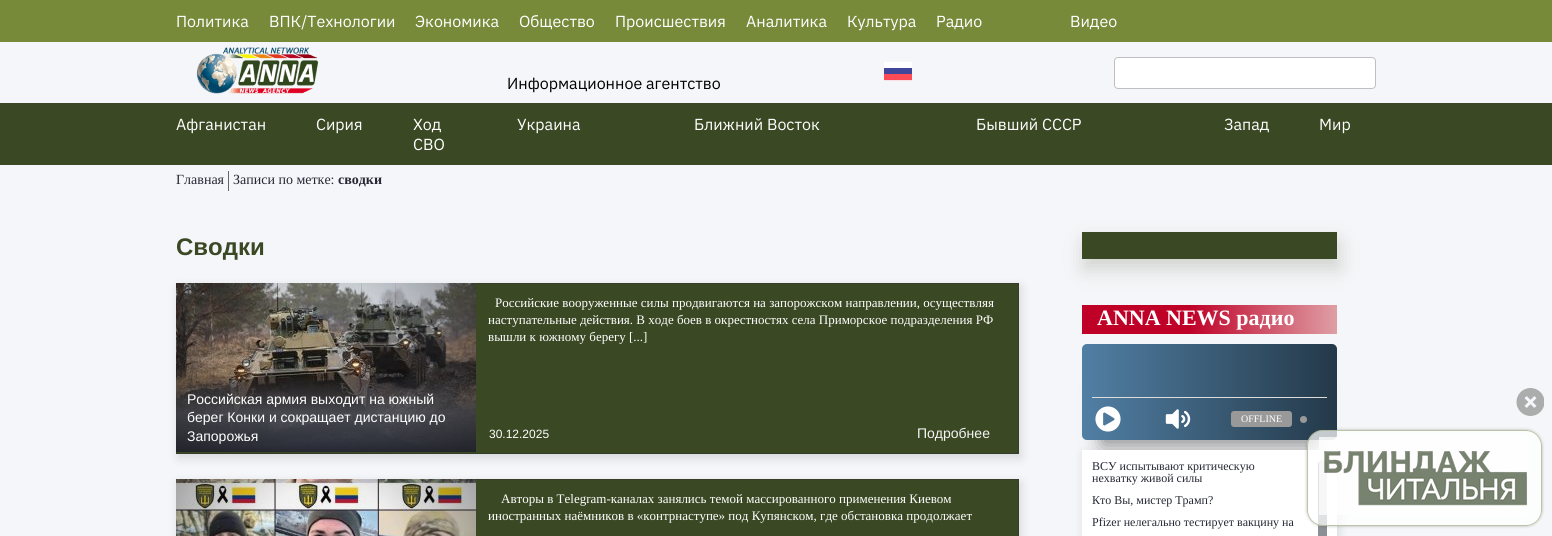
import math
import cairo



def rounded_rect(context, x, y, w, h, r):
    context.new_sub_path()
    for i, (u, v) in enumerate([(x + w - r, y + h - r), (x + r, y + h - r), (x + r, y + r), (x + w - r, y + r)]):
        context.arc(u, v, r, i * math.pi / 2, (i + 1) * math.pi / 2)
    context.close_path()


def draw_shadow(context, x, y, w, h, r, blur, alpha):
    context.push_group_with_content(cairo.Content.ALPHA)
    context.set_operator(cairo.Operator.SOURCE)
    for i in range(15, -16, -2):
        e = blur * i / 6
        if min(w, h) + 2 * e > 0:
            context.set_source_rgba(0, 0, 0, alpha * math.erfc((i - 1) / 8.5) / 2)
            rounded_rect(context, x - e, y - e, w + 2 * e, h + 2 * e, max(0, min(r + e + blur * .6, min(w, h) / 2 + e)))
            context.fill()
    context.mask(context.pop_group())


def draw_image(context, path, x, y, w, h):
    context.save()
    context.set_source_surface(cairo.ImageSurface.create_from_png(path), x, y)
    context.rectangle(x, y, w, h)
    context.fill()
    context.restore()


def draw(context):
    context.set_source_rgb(245 / 255, 246 / 255, 249 / 255)
    context.paint()
    context.set_source_rgb(118 / 255, 138 / 255, 58 / 255)
    context.rectangle(0, 0, 1552, 42)
    context.fill()
    draw_image(context, "images/1.png", 196, 47, 123, 47)
    draw_image(context, "images/2.png", 884, 62, 28, 19)
    context.set_source_rgb(1, 1, 1)
    rounded_rect(context, 1114, 57, 262, 32, 4)
    context.fill()
    rounded_rect(context, 1114.5, 57.5, 261, 31, 3.5)
    context.set_source_rgba(37 / 255, 40 / 255, 52 / 255, 0.3)
    context.set_line_width(1)
    context.stroke()
    context.set_source_rgb(58 / 255, 72 / 255, 36 / 255)
    context.rectangle(0, 103, 1552, 62)
    context.fill()
    context.set_source_rgb(99 / 255, 102 / 255, 111 / 255)
    context.rectangle(228, 171, 1, 20)
    context.fill()
    context.set_source_rgb(37 / 255, 40 / 255, 52 / 255)
    draw_shadow(context, 178, 287, 843, 171, 0, 5, 0.15)
    context.set_source_rgb(58 / 255, 72 / 255, 36 / 255)
    context.rectangle(176.5, 283.5, 842, 170)
    context.fill_preserve()
    context.set_source_rgb(52 / 255, 62 / 255, 41 / 255)
    context.stroke()
    draw_image(context, "images/3.png", 176, 283, 300, 169)
    context.set_source_rgb(37 / 255, 40 / 255, 52 / 255)
    draw_shadow(context, 178, 483, 843, 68, 0, 5, 0.15)
    context.set_source_rgb(58 / 255, 72 / 255, 36 / 255)
    context.rectangle(476, 480, 542, 56)
    context.fill()
    context.rectangle(176.5, 479.5, 842, 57)
    context.set_source_rgb(52 / 255, 62 / 255, 41 / 255)
    context.stroke()
    draw_image(context, "images/4.png", 176, 479, 300, 57)
    context.set_source_rgb(58 / 255, 72 / 255, 36 / 255)
    draw_shadow(context, 1084, 242, 255, 27, 0, 10, 0.2)
    context.set_source_rgb(58 / 255, 72 / 255, 36 / 255)
    context.rectangle(1082, 232, 255, 27)
    context.fill()
    gradient = cairo.LinearGradient(1082, 320, 1337, 319)
    gradient.add_color_stop_rgba(0.42, 191 / 255, 1 / 255, 40 / 255, 1)
    gradient.add_color_stop_rgba(1, 223 / 255, 159 / 255, 165 / 255, 1)
    context.set_source(gradient)
    context.rectangle(1082, 305, 255, 29)
    context.fill()
    context.set_source_rgb(0, 0, 0)
    draw_shadow(context, 1102, 389, 215, 56, 0, 10, 0.45)
    gradient = cairo.LinearGradient(1337, 392, 1082, 392)
    gradient.add_color_stop_rgba(0, 36 / 255, 57 / 255, 73 / 255, 1)
    gradient.add_color_stop_rgba(1, 81 / 255, 127 / 255, 164 / 255, 1)
    context.set_source(gradient)
    rounded_rect(context, 1082, 344, 255, 96, 5)
    context.fill()
    context.set_source_rgb(221 / 255, 221 / 255, 221 / 255)
    context.rectangle(1092, 397, 235, 1)
    context.fill()
    draw_image(context, "images/5.png", 1095, 406, 26, 26)
    draw_image(context, "images/6.png", 1165, 409, 26, 20)
    context.set_source_rgb(153 / 255, 153 / 255, 153 / 255)
    rounded_rect(context, 1231, 411, 61, 16, 3)
    context.fill()
    context.arc(1303.5, 419.5, 3.5, 0, 2 * math.pi)
    context.fill()
    context.set_source_rgb(37 / 255, 40 / 255, 52 / 255)
    draw_shadow(context, 1084, 454, 255, 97, 0, 5, 0.15)
    context.set_source_rgb(1, 1, 1)
    context.rectangle(1082, 450, 255, 86)
    context.fill()
    context.set_source_rgb(140 / 255, 143 / 255, 149 / 255)
    rounded_rect(context, 1318, 460, 9, 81, 4.5)
    context.fill()
    context.save()
    context.set_fill_rule(cairo.FillRule.EVEN_ODD)
    context.new_path()
    context.move_to(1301, 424)
    context.line_to(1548, 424)
    context.line_to(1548, 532)
    context.line_to(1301, 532)
    context.close_path()
    context.move_to(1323, 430)
    context.line_to(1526, 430)
    context.curve_to(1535, 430, 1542, 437, 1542, 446)
    context.line_to(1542, 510)
    context.curve_to(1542, 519, 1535, 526, 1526, 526)
    context.line_to(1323, 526)
    context.curve_to(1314, 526, 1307, 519, 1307, 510)
    context.line_to(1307, 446)
    context.curve_to(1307, 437, 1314, 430, 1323, 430)
    context.close_path()
    context.clip()
    context.set_source_rgb(58 / 255, 72 / 255, 36 / 255)
    draw_shadow(context, 1307, 430, 235, 96, 16, 1.5, 0.36)
    context.restore()
    context.set_source_rgba(1, 1, 1, 0.73)
    rounded_rect(context, 1307, 430, 235, 96, 16)
    context.fill()
    rounded_rect(context, 1307.5, 430.5, 234, 95, 15.5)
    context.set_source_rgba(160 / 255, 174 / 255, 138 / 255, 0.73)
    context.stroke()
    draw_image(context, "images/7.png", 1516, 388, 28, 28)
    draw_image(context, "images/8.png", 1319, 437, 209, 78)
    context.select_font_face("IBM Plex Sans")
    context.set_font_size(16)
    context.set_source_rgb(1, 1, 1)
    context.move_to(176, 27)
    context.show_text("Политика")
    context.move_to(269, 27)
    context.show_text("ВПК/Технологии")
    context.move_to(415, 27)
    context.show_text("Экономика")
    context.move_to(519, 27)
    context.show_text("Общество")
    context.move_to(615, 27)
    context.show_text("Происшествия")
    context.move_to(746, 27)
    context.show_text("Аналитика")
    context.move_to(847, 27)
    context.show_text("Культура")
    context.move_to(936, 27)
    context.show_text("Радио")
    context.move_to(1070, 27)
    context.show_text("Видео")
    context.set_source_rgb(0, 0, 0)
    context.move_to(507, 89)
    context.show_text("Информационное агентство")
    context.set_source_rgb(1, 1, 1)
    context.move_to(176, 130)
    context.show_text("Афганистан")
    context.move_to(316, 130)
    context.show_text("Сирия")
    context.move_to(413, 130)
    context.show_text("Ход")
    context.move_to(413, 150)
    context.show_text("СВО")
    context.move_to(517, 130)
    context.show_text("Украина")
    context.move_to(694, 130)
    context.show_text("Ближний Восток")
    context.move_to(976, 130)
    context.show_text("Бывший СССР")
    context.move_to(1224, 130)
    context.show_text("Запад")
    context.move_to(1319, 130)
    context.show_text("Мир")
    context.select_font_face("Liberation Serif")
    context.set_font_size(14)
    context.set_source_rgb(37 / 255, 40 / 255, 52 / 255)
    context.move_to(176, 184)
    context.show_text("Главная")
    context.move_to(233, 184)
    context.show_text("Записи по метке:")
    context.select_font_face("Liberation Serif", cairo.FontSlant.NORMAL, cairo.FontWeight.BOLD)
    context.move_to(338, 184)
    context.show_text("сводки")
    context.select_font_face("Liberation Sans", cairo.FontSlant.NORMAL, cairo.FontWeight.BOLD)
    context.set_font_size(24)
    context.set_source_rgb(58 / 255, 72 / 255, 36 / 255)
    context.move_to(176, 255)
    context.show_text("Сводки")
    context.select_font_face("Liberation Sans")
    context.set_font_size(14)
    context.set_source_rgb(1, 1, 1)
    context.move_to(187, 404)
    context.show_text("Российская армия выходит на южный")
    context.move_to(187, 422)
    context.show_text("берег Конки и сокращает дистанцию до")
    context.move_to(187, 441)
    context.show_text("Запорожья")
    context.select_font_face("Liberation Serif")
    context.set_font_size(13)
    context.move_to(495, 307)
    context.show_text("Российские вооруженные силы продвигаются на запорожском направлении, осуществляя")
    context.move_to(488, 324)
    context.show_text("наступательные действия. В ходе боев в окрестностях села Приморское подразделения РФ")
    context.move_to(488, 341)
    context.show_text("вышли к южному берегу [...]")
    context.select_font_face("Liberation Sans")
    context.set_font_size(12)
    context.move_to(489, 438)
    context.show_text("30.12.2025")
    context.set_font_size(14)
    context.set_source_rgb(245 / 255, 245 / 255, 245 / 255)
    context.move_to(917, 438)
    context.show_text("Подробнее")
    context.select_font_face("Liberation Serif")
    context.set_font_size(13)
    context.set_source_rgb(1, 1, 1)
    context.move_to(501, 503)
    context.show_text("Авторы в Telegram-каналах занялись темой массированного применения Киевом")
    context.move_to(488, 520)
    context.show_text("иностранных наёмников в «контрнаступе» под Купянском, где обстановка продолжает")
    context.select_font_face("Liberation Serif", cairo.FontSlant.NORMAL, cairo.FontWeight.BOLD)
    context.set_font_size(22)
    context.move_to(1097, 325)
    context.show_text("ANNA NEWS радио")
    context.select_font_face("Liberation Serif")
    context.set_font_size(10)
    context.move_to(1241, 422)
    context.show_text("OFFLINE")
    context.set_font_size(12)
    context.set_source_rgb(37 / 255, 40 / 255, 52 / 255)
    context.move_to(1092, 470)
    context.show_text("ВСУ испытывают критическую")
    context.move_to(1092, 482)
    context.show_text("нехватку живой силы")
    context.move_to(1092, 504)
    context.show_text("Кто Вы, мистер Трамп?")
    context.move_to(1092, 526)
    context.show_text("Pfizer нелегально тестирует вакцину на")


surface = cairo.ImageSurface(cairo.Format.RGB24, 1552, 536)
context = cairo.Context(surface)
options = cairo.FontOptions()
options.set_hint_metrics(cairo.HintMetrics.OFF)
options.set_hint_style(cairo.HintStyle.NONE)
context.set_font_options(options)
context.set_miter_limit(4)
draw(context)
surface.write_to_png("out.png")
